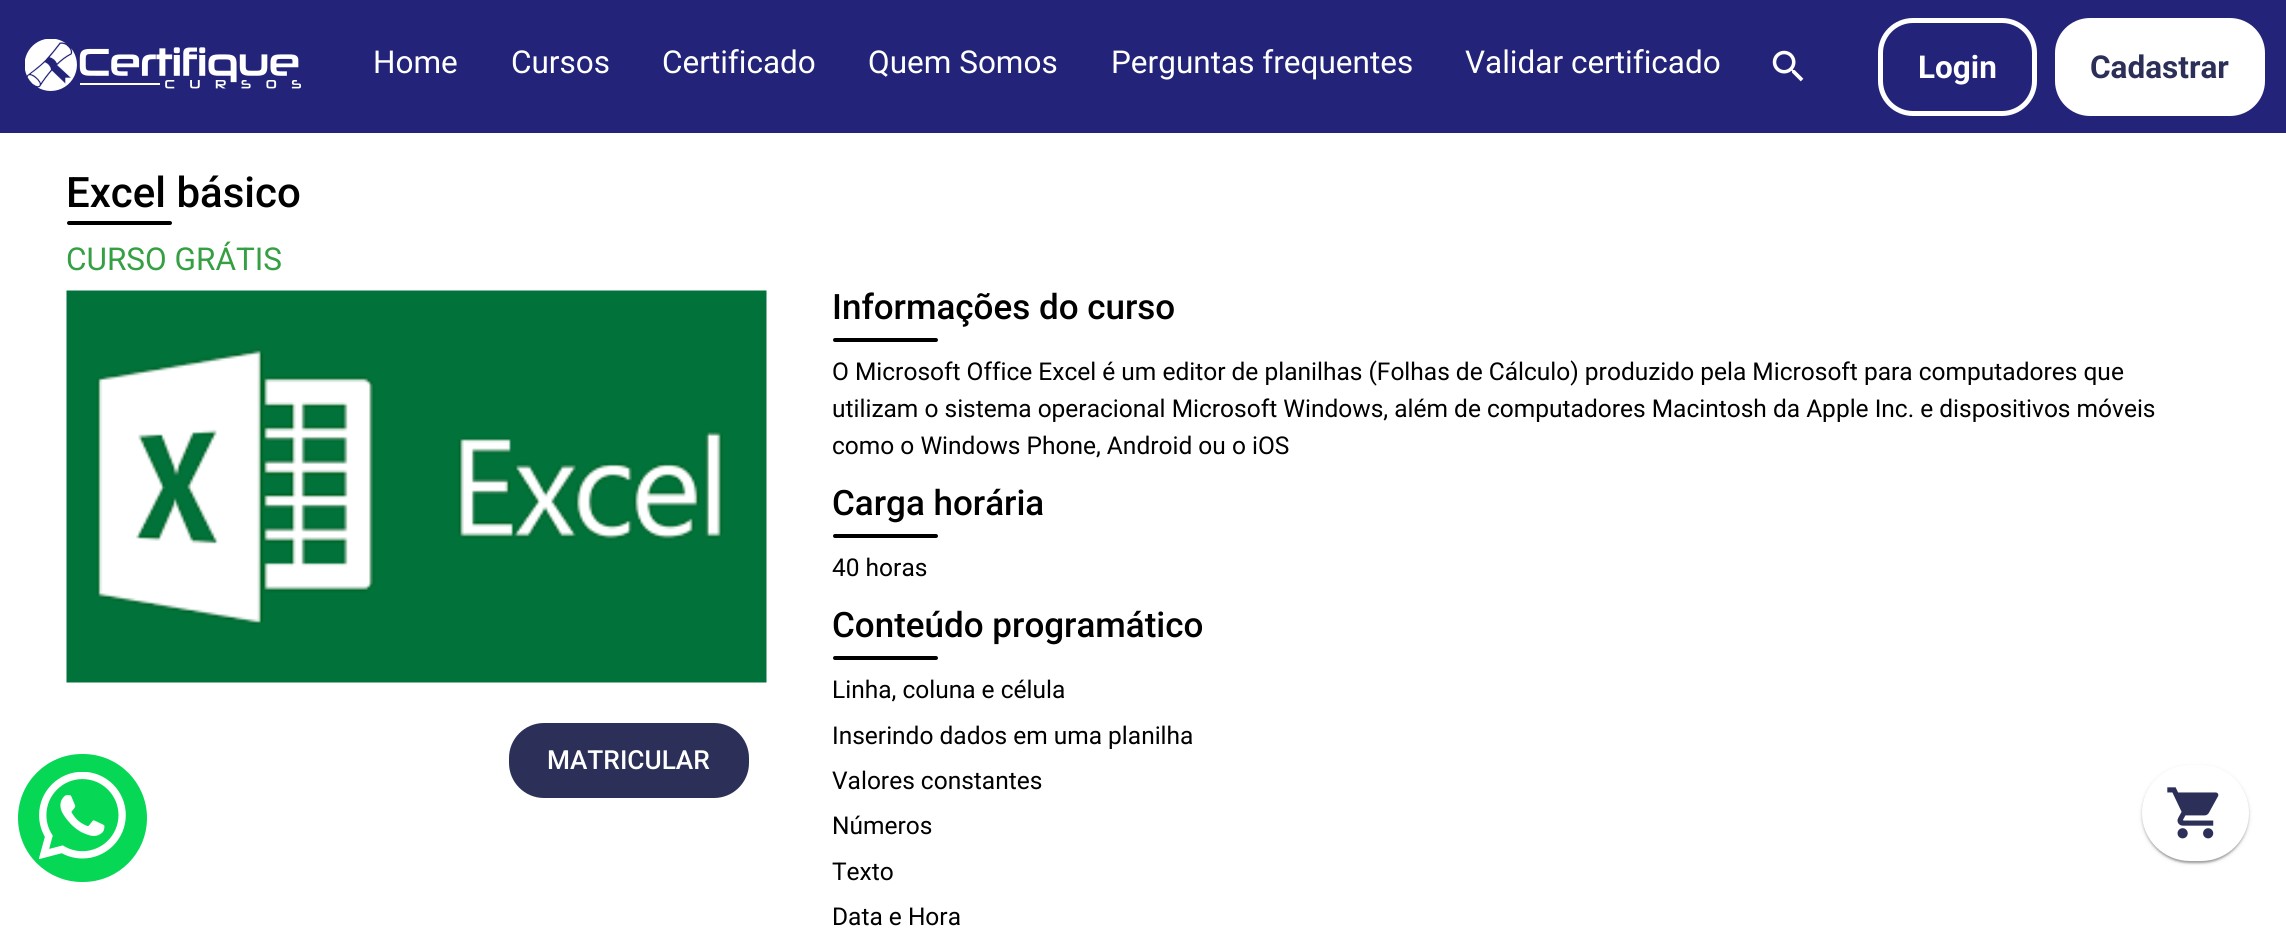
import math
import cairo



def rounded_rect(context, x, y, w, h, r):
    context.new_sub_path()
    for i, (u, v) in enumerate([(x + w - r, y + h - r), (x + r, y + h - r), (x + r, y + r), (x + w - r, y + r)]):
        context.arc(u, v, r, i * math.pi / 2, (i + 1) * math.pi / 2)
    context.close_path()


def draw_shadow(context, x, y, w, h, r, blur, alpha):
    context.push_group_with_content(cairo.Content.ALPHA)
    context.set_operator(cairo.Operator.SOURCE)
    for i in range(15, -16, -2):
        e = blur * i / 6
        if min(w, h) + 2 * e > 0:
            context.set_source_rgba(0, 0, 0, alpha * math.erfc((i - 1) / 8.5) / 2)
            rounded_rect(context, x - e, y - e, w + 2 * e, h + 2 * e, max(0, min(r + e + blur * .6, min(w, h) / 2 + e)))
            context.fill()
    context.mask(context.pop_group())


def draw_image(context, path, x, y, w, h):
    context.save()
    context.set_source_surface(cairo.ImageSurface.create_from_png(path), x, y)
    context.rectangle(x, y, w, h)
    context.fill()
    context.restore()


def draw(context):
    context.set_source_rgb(1, 1, 1)
    context.paint()
    context.set_source_rgb(35 / 255, 36 / 255, 121 / 255)
    context.rectangle(0, 0, 2286, 133)
    context.fill()
    draw_image(context, "images/1.png", 25, 39, 276, 52)
    draw_image(context, "images/2.png", 1772, 50, 32, 32)
    rounded_rect(context, 1880.5, 20.5, 154, 93, 32.5)
    context.set_source_rgb(1, 1, 1)
    context.set_line_width(5)
    context.stroke()
    rounded_rect(context, 2055, 18, 210, 98, 35)
    context.fill()
    context.set_source_rgb(0, 0, 0)
    rounded_rect(context, 67, 221, 105, 4, 2)
    context.fill()
    draw_image(context, "images/3.png", 66, 290, 701, 393)
    context.set_source_rgb(44 / 255, 48 / 255, 88 / 255)
    rounded_rect(context, 509, 723, 240, 75, 35)
    context.fill()
    context.set_source_rgb(0, 0, 0)
    rounded_rect(context, 833, 338, 105, 4, 2)
    context.fill()
    rounded_rect(context, 833, 534, 105, 4, 2)
    context.fill()
    rounded_rect(context, 833, 656, 105, 4, 2)
    context.fill()
    context.set_source_rgb(6 / 255, 215 / 255, 85 / 255)
    rounded_rect(context, 18, 754, 129, 128, 64)
    context.fill()
    draw_image(context, "images/4.png", 39, 772, 87, 87)
    context.set_source_rgb(0, 0, 0)
    draw_shadow(context, 2142, 767, 107, 96, 48, 2.5, 0.12)
    draw_shadow(context, 2142, 767, 107, 96, 48, 1, 0.14)
    draw_shadow(context, 2144, 770, 103, 93, 46.5, 1, 0.2)
    context.set_source_rgb(1, 1, 1)
    rounded_rect(context, 2142, 765, 107, 96, 48)
    context.fill()
    draw_image(context, "images/5.png", 2167, 787, 52, 52)
    context.select_font_face("Roboto")
    context.set_font_size(31.5)
    context.move_to(373, 73)
    context.show_text("Home")
    context.move_to(511, 73)
    context.show_text("Cursos")
    context.move_to(662, 73)
    context.show_text("Certificado")
    context.move_to(868, 73)
    context.show_text("Quem Somos")
    context.move_to(1111, 73)
    context.show_text("Perguntas frequentes")
    context.move_to(1465, 73)
    context.show_text("Validar certificado")
    context.select_font_face("Roboto", cairo.FontSlant.NORMAL, cairo.FontWeight.BOLD)
    context.move_to(1918, 78)
    context.show_text("Login")
    context.set_source_rgb(44 / 255, 47 / 255, 88 / 255)
    context.move_to(2090, 78)
    context.show_text("Cadastrar")
    context.select_font_face("Roboto Medium")
    context.set_font_size(42)
    context.set_source_rgb(0, 0, 0)
    context.move_to(66, 207)
    context.show_text("Excel básico")
    context.select_font_face("Roboto")
    context.set_font_size(31.5)
    context.set_source_rgb(53 / 255, 159 / 255, 67 / 255)
    context.move_to(66, 270)
    context.show_text("CURSO GRÁTIS")
    context.select_font_face("Roboto Medium")
    context.set_font_size(26.25)
    context.set_source_rgb(1, 1, 1)
    context.move_to(547, 769)
    context.show_text("MATRICULAR")
    context.set_font_size(35)
    context.set_source_rgb(0, 0, 0)
    context.move_to(832, 319)
    context.show_text("Informações do curso")
    context.select_font_face("Roboto")
    context.set_font_size(24.5)
    context.move_to(832, 380)
    context.show_text("O Microsoft Office Excel é um editor de planilhas (Folhas de Cálculo) produzido pela Microsoft para computadores que")
    context.move_to(832, 417)
    context.show_text("utilizam o sistema operacional Microsoft Windows, além de computadores Macintosh da Apple Inc. e dispositivos móveis")
    context.move_to(832, 454)
    context.show_text("como o Windows Phone, Android ou o iOS")
    context.select_font_face("Roboto Medium")
    context.set_font_size(35)
    context.move_to(832, 515)
    context.show_text("Carga horária")
    context.select_font_face("Roboto")
    context.set_font_size(24.5)
    context.move_to(832, 576)
    context.show_text("40 horas")
    context.select_font_face("Roboto Medium")
    context.set_font_size(35)
    context.move_to(832, 637)
    context.show_text("Conteúdo programático")
    context.select_font_face("Roboto")
    context.set_font_size(24.5)
    context.move_to(832, 698)
    context.show_text("Linha, coluna e célula")
    context.move_to(832, 744)
    context.show_text("Inserindo dados em uma planilha")
    context.move_to(832, 789)
    context.show_text("Valores constantes")
    context.move_to(832, 834)
    context.show_text("Números")
    context.move_to(832, 880)
    context.show_text("Texto")
    context.move_to(832, 925)
    context.show_text("Data e Hora")


surface = cairo.ImageSurface(cairo.Format.RGB24, 2286, 934)
context = cairo.Context(surface)
options = cairo.FontOptions()
options.set_hint_metrics(cairo.HintMetrics.OFF)
options.set_hint_style(cairo.HintStyle.NONE)
context.set_font_options(options)
context.set_miter_limit(4)
draw(context)
surface.write_to_png("out.png")
